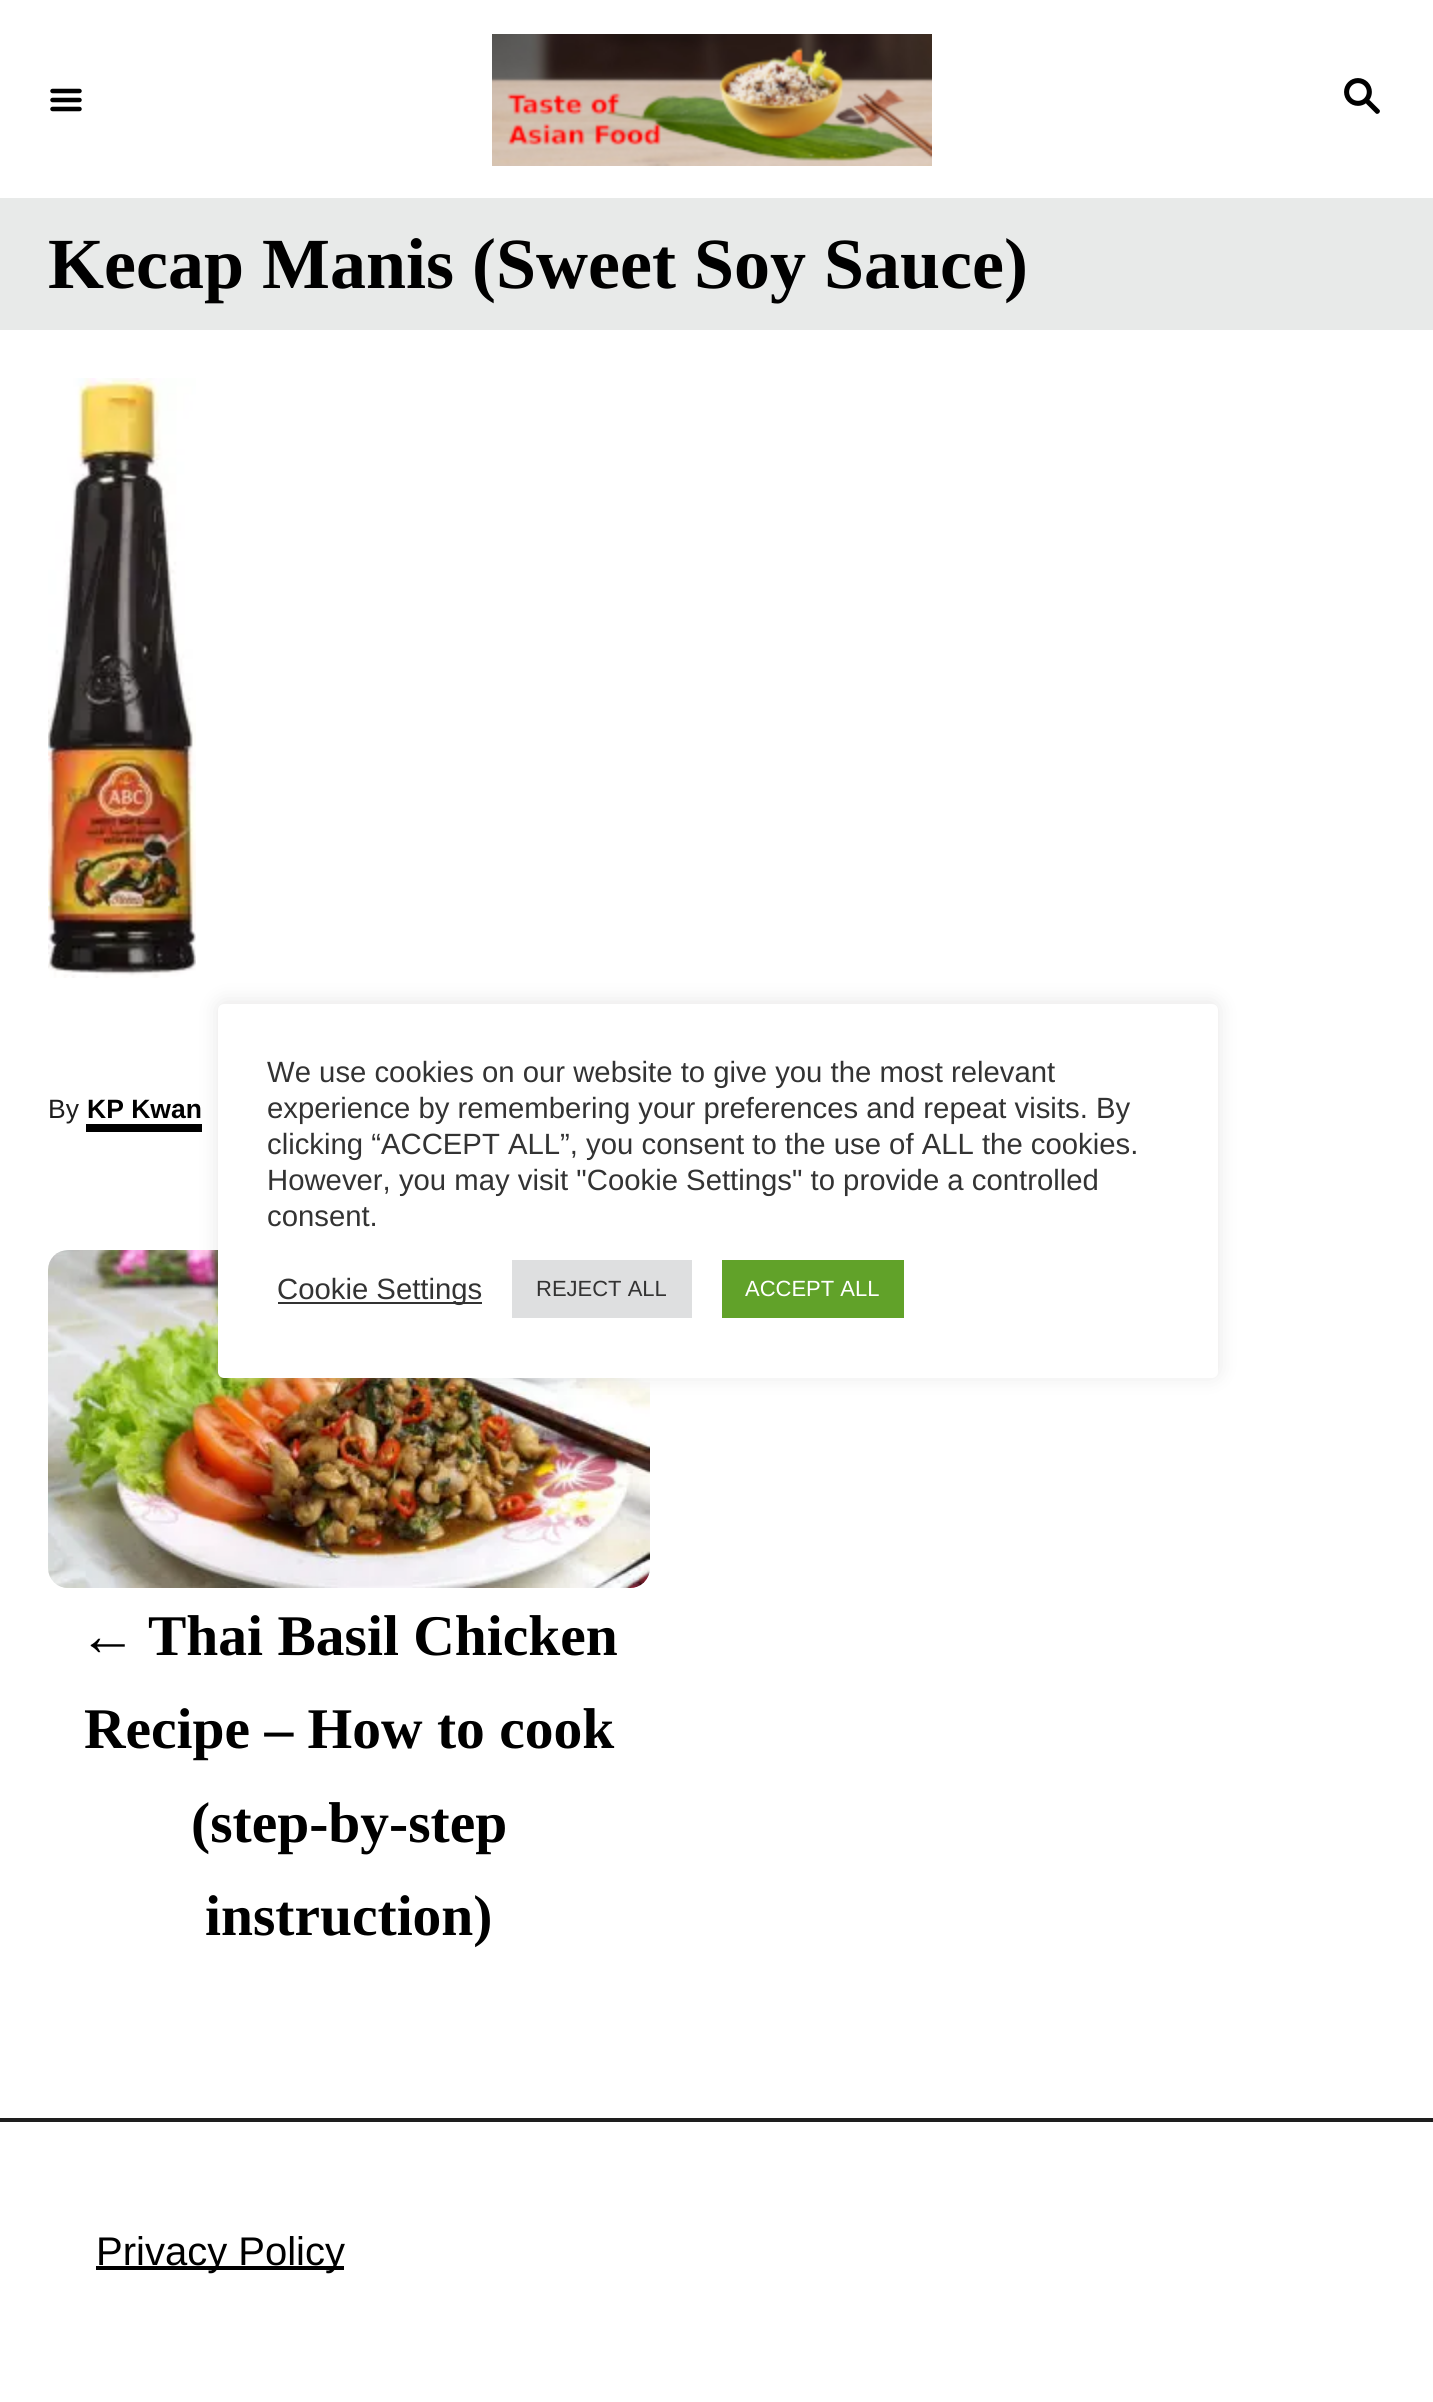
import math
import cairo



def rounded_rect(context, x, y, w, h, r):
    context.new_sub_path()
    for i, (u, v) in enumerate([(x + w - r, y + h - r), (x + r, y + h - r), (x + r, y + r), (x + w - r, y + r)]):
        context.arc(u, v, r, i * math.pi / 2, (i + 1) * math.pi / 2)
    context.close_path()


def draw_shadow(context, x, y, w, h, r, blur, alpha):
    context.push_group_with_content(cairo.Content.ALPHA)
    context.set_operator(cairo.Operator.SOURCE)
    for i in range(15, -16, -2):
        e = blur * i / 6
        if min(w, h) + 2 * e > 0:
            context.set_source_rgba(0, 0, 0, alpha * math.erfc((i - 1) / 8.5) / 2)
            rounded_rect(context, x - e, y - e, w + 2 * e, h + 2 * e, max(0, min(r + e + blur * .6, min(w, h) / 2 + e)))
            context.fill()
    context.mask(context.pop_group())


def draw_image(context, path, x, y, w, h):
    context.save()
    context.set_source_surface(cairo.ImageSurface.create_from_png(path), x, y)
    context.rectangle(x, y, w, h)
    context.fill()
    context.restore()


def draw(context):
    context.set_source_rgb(1, 1, 1)
    context.paint()
    draw_image(context, "images/1.png", 50, 88, 32, 24)
    draw_image(context, "images/2.png", 492, 34, 440, 132)
    draw_image(context, "images/3.png", 1344, 78, 36, 36)
    context.set_source_rgb(232 / 255, 234 / 255, 233 / 255)
    context.rectangle(0, 198, 1433, 132)
    context.fill()
    draw_image(context, "images/4.png", 48, 378, 148, 600)
    context.set_source_rgb(0, 0, 0)
    context.rectangle(86, 1124, 116, 8)
    context.fill()
    draw_image(context, "images/5.png", 48, 1250, 602, 338)
    context.set_source_rgb(172 / 255, 171 / 255, 171 / 255)
    draw_shadow(context, 218, 1002, 1000, 374, 6, 10, 0.3)
    context.set_source_rgb(1, 1, 1)
    rounded_rect(context, 218, 1004, 1000, 374, 6)
    context.fill()
    context.set_source_rgb(51 / 255, 51 / 255, 51 / 255)
    context.rectangle(278, 1302, 204, 2)
    context.fill()
    context.set_source_rgb(222 / 255, 223 / 255, 224 / 255)
    context.rectangle(512, 1260, 180, 58)
    context.fill()
    context.set_source_rgb(97 / 255, 162 / 255, 41 / 255)
    context.rectangle(722, 1260, 182, 58)
    context.fill()
    context.set_source_rgb(30 / 255, 30 / 255, 30 / 255)
    context.rectangle(0, 2118, 1433, 4)
    context.fill()
    context.set_source_rgb(0, 0, 0)
    context.rectangle(96, 2266, 248, 4)
    context.fill()
    context.select_font_face("Liberation Serif", cairo.FontSlant.NORMAL, cairo.FontWeight.BOLD)
    context.set_font_size(72)
    context.move_to(48, 288)
    context.show_text("Kecap Manis (Sweet Soy Sauce)")
    context.select_font_face("Liberation Sans")
    context.set_font_size(26.5)
    context.set_source_rgb(30 / 255, 30 / 255, 30 / 255)
    context.move_to(48, 1118)
    context.show_text("By")
    context.select_font_face("Liberation Sans", cairo.FontSlant.NORMAL, cairo.FontWeight.BOLD)
    context.set_source_rgb(0, 0, 0)
    context.move_to(87, 1118)
    context.show_text("KP Kwan")
    context.select_font_face("Liberation Serif", cairo.FontSlant.NORMAL, cairo.FontWeight.BOLD)
    context.set_font_size(57.5)
    context.move_to(79, 1655)
    context.show_text("←")
    context.move_to(148, 1655)
    context.show_text("Thai Basil Chicken")
    context.move_to(84, 1748)
    context.show_text("Recipe – How to cook")
    context.move_to(191, 1842)
    context.show_text("(step-by-step")
    context.move_to(205, 1935)
    context.show_text("instruction)")
    context.select_font_face("Liberation Sans")
    context.set_font_size(29.3)
    context.set_source_rgb(51 / 255, 51 / 255, 51 / 255)
    context.move_to(267, 1082)
    context.show_text("We use cookies on our website to give you the most relevant")
    context.move_to(267, 1118)
    context.show_text("experience by remembering your preferences and repeat visits. By")
    context.move_to(267, 1154)
    context.show_text("clicking “ACCEPT ALL”, you consent to the use of ALL the cookies.")
    context.move_to(267, 1190)
    context.show_text("However, you may visit \"Cookie Settings\" to provide a controlled")
    context.move_to(267, 1226)
    context.show_text("consent.")
    context.move_to(277, 1299)
    context.show_text("Cookie Settings")
    context.set_font_size(22)
    context.move_to(536, 1296)
    context.show_text("REJECT ALL")
    context.set_source_rgb(1, 1, 1)
    context.move_to(745, 1296)
    context.show_text("ACCEPT ALL")
    context.set_font_size(40)
    context.set_source_rgb(0, 0, 0)
    context.move_to(96, 2265)
    context.show_text("Privacy Policy")


surface = cairo.ImageSurface(cairo.Format.RGB24, 1433, 2402)
context = cairo.Context(surface)
options = cairo.FontOptions()
options.set_hint_metrics(cairo.HintMetrics.OFF)
options.set_hint_style(cairo.HintStyle.NONE)
context.set_font_options(options)
context.set_miter_limit(4)
draw(context)
surface.write_to_png("out.png")
